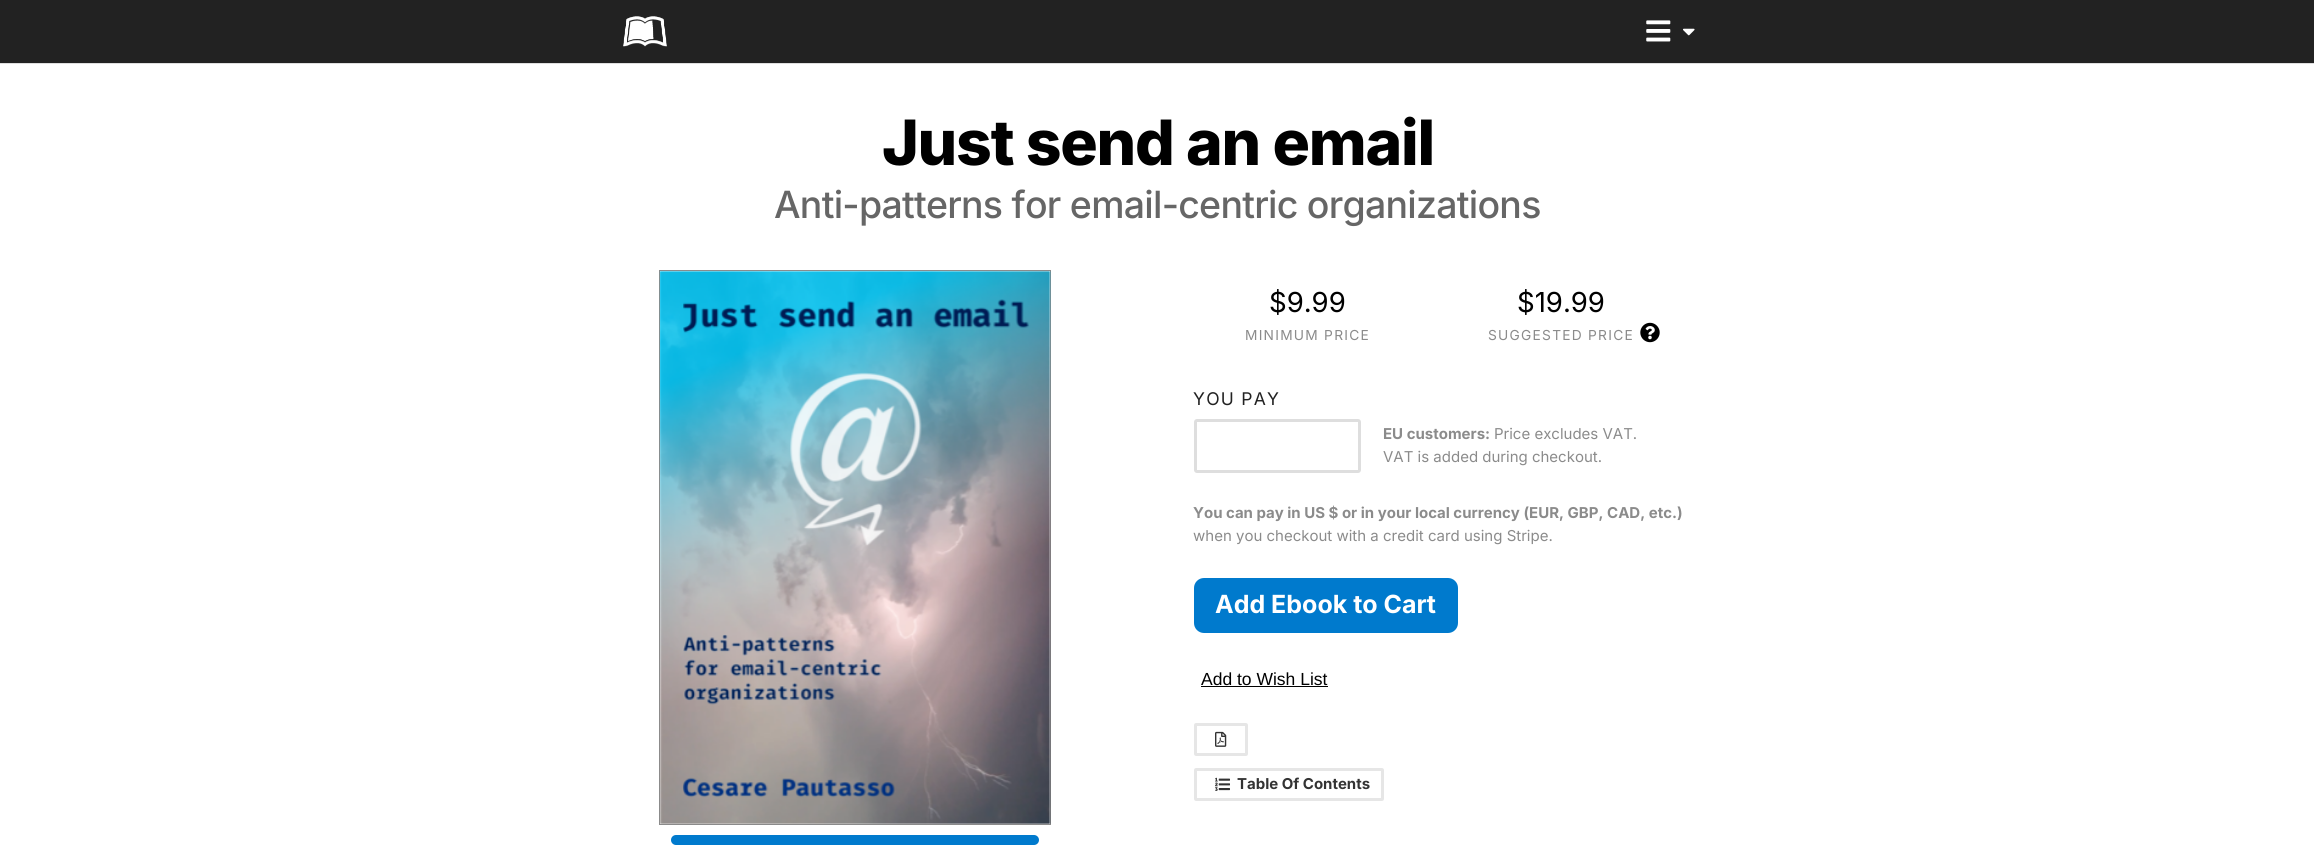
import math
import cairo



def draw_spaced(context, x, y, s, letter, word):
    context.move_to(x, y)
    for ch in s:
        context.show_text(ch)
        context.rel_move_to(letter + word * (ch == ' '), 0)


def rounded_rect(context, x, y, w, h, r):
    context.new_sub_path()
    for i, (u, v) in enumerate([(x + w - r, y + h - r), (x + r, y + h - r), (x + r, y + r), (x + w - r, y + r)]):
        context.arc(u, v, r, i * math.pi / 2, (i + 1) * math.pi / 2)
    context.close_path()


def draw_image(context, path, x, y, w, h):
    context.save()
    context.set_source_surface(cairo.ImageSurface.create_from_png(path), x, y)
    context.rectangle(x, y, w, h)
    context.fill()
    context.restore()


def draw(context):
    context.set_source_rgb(34 / 255, 34 / 255, 34 / 255)
    context.paint()
    draw_image(context, "images/1.png", 623, 16, 44, 31)
    draw_image(context, "images/2.png", 1646, 20, 25, 22)
    draw_image(context, "images/3.png", 1683, 28, 12, 8)
    context.set_source_rgb(1, 1, 1)
    context.rectangle(0, 64, 2314, 792)
    context.fill()
    context.set_source_rgb(222 / 255, 222 / 255, 222 / 255)
    context.rectangle(0, 63, 2314, 1)
    context.fill()
    context.rectangle(659.5, 270.5, 391, 554)
    context.set_source_rgb(139 / 255, 139 / 255, 139 / 255)
    context.set_line_width(1)
    context.stroke()
    draw_image(context, "images/4.png", 659, 271, 392, 553)
    context.set_source_rgb(0, 122 / 255, 205 / 255)
    rounded_rect(context, 671, 835, 368, 10, 5)
    context.fill()
    draw_image(context, "images/5.png", 1640, 322, 20, 21)
    rounded_rect(context, 1195.5, 420.5, 164, 51, 1.5)
    context.set_source_rgb(222 / 255, 222 / 255, 222 / 255)
    context.set_line_width(3)
    context.stroke()
    context.set_source_rgb(0, 122 / 255, 205 / 255)
    rounded_rect(context, 1194, 578, 264, 55, 10)
    context.fill()
    context.set_source_rgb(0, 0, 0)
    context.rectangle(1201, 686, 127, 1)
    context.fill()
    rounded_rect(context, 1195.5, 724.5, 51, 30, 0.5)
    context.set_source_rgb(230 / 255, 230 / 255, 230 / 255)
    context.stroke()
    draw_image(context, "images/6.png", 1215, 731, 12, 16)
    rounded_rect(context, 1195.5, 769.5, 187, 30, 0.5)
    context.stroke()
    draw_image(context, "images/7.png", 1215, 777, 15, 14)
    context.select_font_face("Inter ExtraBold")
    context.set_font_size(62.5)
    context.set_source_rgb(0, 0, 0)
    draw_spaced(context, 882, 165, "Just send an email", -1.25, 0)
    context.select_font_face("Inter Medium")
    context.set_font_size(37.5)
    context.set_source_rgb(102 / 255, 102 / 255, 102 / 255)
    draw_spaced(context, 774, 218, "Anti-patterns for email-centric organizations", -0.75, 0)
    context.select_font_face("Inter")
    context.set_font_size(27.5)
    context.set_source_rgb(0, 0, 0)
    context.move_to(1269, 312)
    context.show_text("$9.99")
    context.set_font_size(13.75)
    context.set_source_rgb(139 / 255, 139 / 255, 139 / 255)
    draw_spaced(context, 1245, 340, "MINIMUM PRICE", 1.25, 0)
    context.set_font_size(27.5)
    context.set_source_rgb(0, 0, 0)
    context.move_to(1517, 312)
    context.show_text("$19.99")
    context.set_font_size(13.75)
    context.set_source_rgb(139 / 255, 139 / 255, 139 / 255)
    draw_spaced(context, 1488, 340, "SUGGESTED PRICE", 1.25, 0)
    context.set_font_size(17.5)
    context.set_source_rgb(34 / 255, 34 / 255, 34 / 255)
    draw_spaced(context, 1193, 405, "YOU PAY", 1.25, 0)
    context.select_font_face("Inter", cairo.FontSlant.NORMAL, cairo.FontWeight.BOLD)
    context.set_font_size(15)
    context.set_source_rgb(139 / 255, 139 / 255, 139 / 255)
    context.move_to(1383, 439)
    context.show_text("EU customers:")
    context.select_font_face("Inter")
    context.move_to(1494, 439)
    context.show_text("Price excludes VAT.")
    context.move_to(1383, 462)
    context.show_text("VAT is added during checkout.")
    context.select_font_face("Inter", cairo.FontSlant.NORMAL, cairo.FontWeight.BOLD)
    context.move_to(1193, 518)
    context.show_text("You can pay in US $ or in your local currency (EUR, GBP, CAD, etc.)")
    context.select_font_face("Inter")
    context.move_to(1193, 541)
    context.show_text("when you checkout with a credit card using Stripe.")
    context.select_font_face("Inter", cairo.FontSlant.NORMAL, cairo.FontWeight.BOLD)
    context.set_font_size(25)
    context.set_source_rgb(1, 1, 1)
    context.move_to(1215, 613)
    context.show_text("Add Ebook to Cart")
    context.select_font_face("Liberation Sans")
    context.set_font_size(17.5)
    context.set_source_rgb(0, 0, 0)
    context.move_to(1201, 685)
    context.show_text("Add to Wish List")
    context.select_font_face("Inter", cairo.FontSlant.NORMAL, cairo.FontWeight.BOLD)
    context.set_font_size(15)
    context.set_source_rgb(51 / 255, 51 / 255, 51 / 255)
    context.move_to(1237, 789)
    context.show_text("Table Of Contents")


surface = cairo.ImageSurface(cairo.Format.RGB24, 2314, 856)
context = cairo.Context(surface)
options = cairo.FontOptions()
options.set_hint_metrics(cairo.HintMetrics.OFF)
options.set_hint_style(cairo.HintStyle.NONE)
context.set_font_options(options)
context.set_miter_limit(4)
draw(context)
surface.write_to_png("out.png")
